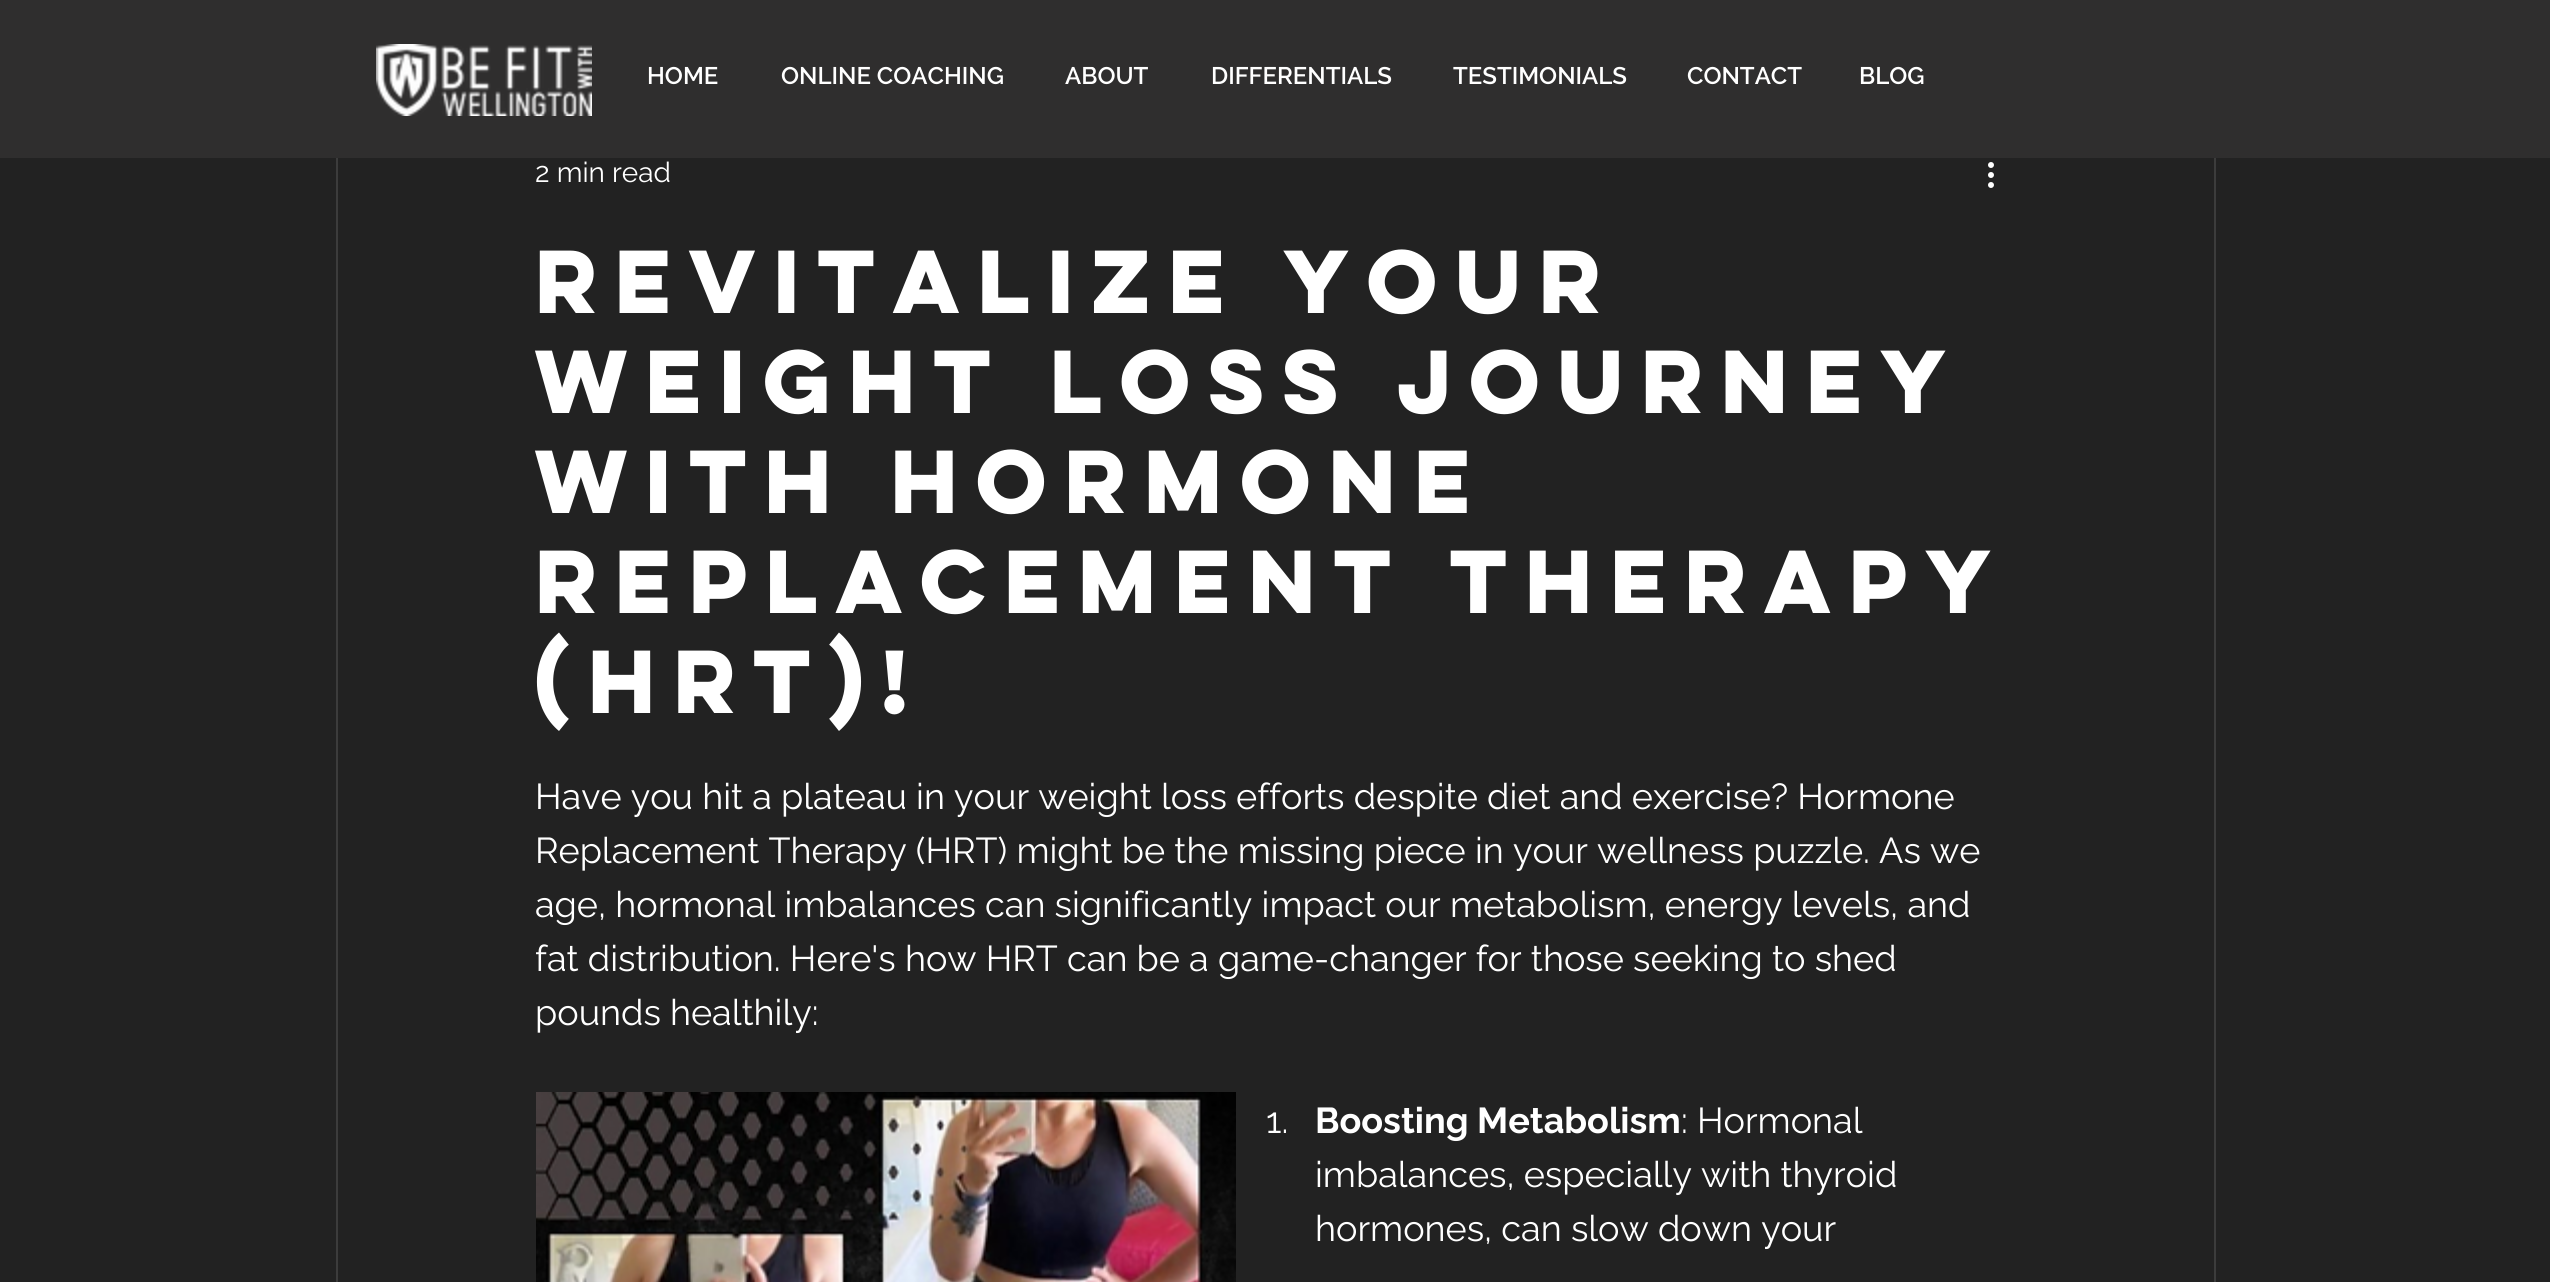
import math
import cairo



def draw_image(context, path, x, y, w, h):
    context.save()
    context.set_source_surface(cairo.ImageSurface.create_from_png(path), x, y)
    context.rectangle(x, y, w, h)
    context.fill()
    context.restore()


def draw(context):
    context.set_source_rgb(34 / 255, 34 / 255, 34 / 255)
    context.paint()
    context.rectangle(337, 45, 1878, 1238)
    context.set_source_rgb(60 / 255, 60 / 255, 60 / 255)
    context.stroke()
    context.set_source_rgb(47 / 255, 46 / 255, 46 / 255)
    context.rectangle(0, 0, 2550, 158)
    context.fill()
    draw_image(context, "images/1.png", 376, 44, 216, 72)
    draw_image(context, "images/2.png", 1988, 162, 6, 26)
    draw_image(context, "images/3.png", 536, 1092, 700, 190)
    context.select_font_face("Raleway SemiBold")
    context.set_font_size(24)
    context.set_source_rgb(1, 1, 1)
    context.move_to(647, 84)
    context.show_text("HOME")
    context.move_to(781, 84)
    context.show_text("ONLINE COACHING")
    context.move_to(1065, 84)
    context.show_text("ABOUT")
    context.move_to(1211, 84)
    context.show_text("DIFFERENTIALS")
    context.move_to(1453, 84)
    context.show_text("TESTIMONIALS")
    context.move_to(1687, 84)
    context.show_text("CONTACT")
    context.move_to(1859, 84)
    context.show_text("BLOG")
    context.select_font_face("Raleway")
    context.set_font_size(28)
    context.move_to(535, 182)
    context.show_text("2 min read")
    context.select_font_face("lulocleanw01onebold", cairo.FontSlant.NORMAL, cairo.FontWeight.BOLD)
    context.set_font_size(80)
    context.move_to(535, 313)
    context.show_text("Revitalize Your")
    context.move_to(535, 413)
    context.show_text("Weight Loss Journey")
    context.move_to(535, 513)
    context.show_text("with Hormone")
    context.move_to(535, 613)
    context.show_text("Replacement Therapy")
    context.move_to(535, 713)
    context.show_text("(HRT)!")
    context.select_font_face("Raleway")
    context.set_font_size(36)
    context.move_to(535, 809)
    context.show_text("Have you hit a plateau in your weight loss efforts despite diet and exercise? Hormone")
    context.move_to(535, 863)
    context.show_text("Replacement Therapy (HRT) might be the missing piece in your wellness puzzle. As we")
    context.move_to(535, 917)
    context.show_text("age, hormonal imbalances can significantly impact our metabolism, energy levels, and")
    context.move_to(535, 971)
    context.show_text("fat distribution. Here's how HRT can be a game-changer for those seeking to shed")
    context.move_to(535, 1025)
    context.show_text("pounds healthily:")
    context.move_to(1266, 1133)
    context.show_text("1.")
    context.select_font_face("Raleway", cairo.FontSlant.NORMAL, cairo.FontWeight.BOLD)
    context.move_to(1315, 1133)
    context.show_text("Boosting Metabolism")
    context.select_font_face("Raleway")
    context.move_to(1681, 1133)
    context.show_text(": Hormonal")
    context.move_to(1315, 1187)
    context.show_text("imbalances, especially with thyroid")
    context.move_to(1315, 1241)
    context.show_text("hormones, can slow down your")


surface = cairo.ImageSurface(cairo.Format.RGB24, 2550, 1282)
context = cairo.Context(surface)
options = cairo.FontOptions()
options.set_hint_metrics(cairo.HintMetrics.OFF)
options.set_hint_style(cairo.HintStyle.NONE)
context.set_font_options(options)
context.set_miter_limit(4)
draw(context)
surface.write_to_png("out.png")
